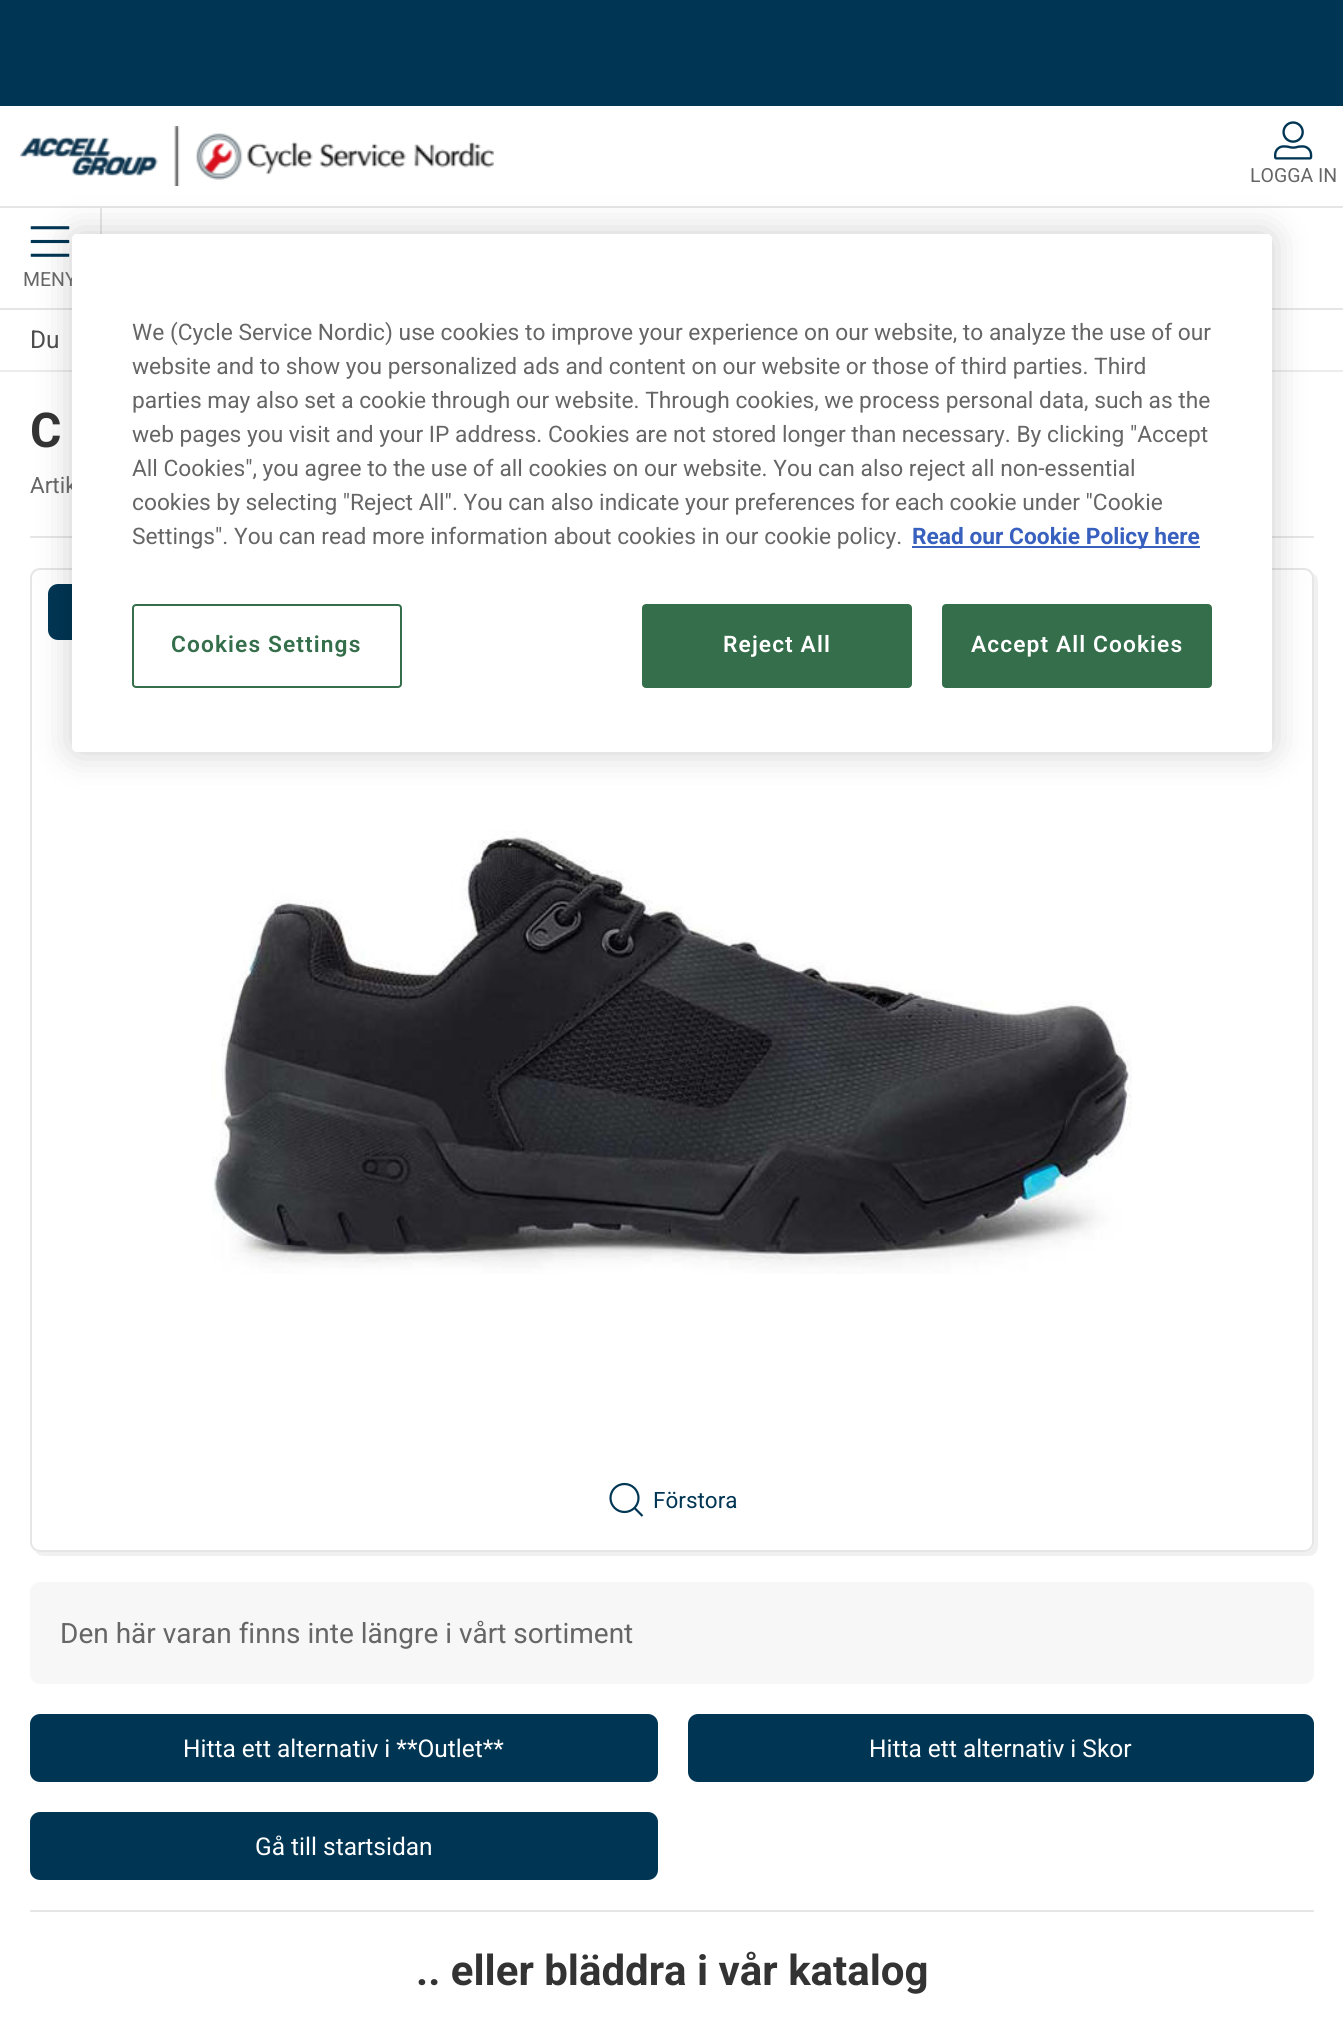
import math
import cairo



def draw_spaced(context, x, y, s, letter, word):
    context.move_to(x, y)
    for ch in s:
        context.show_text(ch)
        context.rel_move_to(letter + word * (ch == ' '), 0)


def rounded_rect(context, x, y, w, h, r):
    context.new_sub_path()
    for i, (u, v) in enumerate([(x + w - r, y + h - r), (x + r, y + h - r), (x + r, y + r), (x + w - r, y + r)]):
        context.arc(u, v, r, i * math.pi / 2, (i + 1) * math.pi / 2)
    context.close_path()


def draw_shadow(context, x, y, w, h, r, blur, alpha):
    context.push_group_with_content(cairo.Content.ALPHA)
    context.set_operator(cairo.Operator.SOURCE)
    for i in range(15, -16, -2):
        e = blur * i / 6
        if min(w, h) + 2 * e > 0:
            context.set_source_rgba(0, 0, 0, alpha * math.erfc((i - 1) / 8.5) / 2)
            rounded_rect(context, x - e, y - e, w + 2 * e, h + 2 * e, max(0, min(r + e + blur * .6, min(w, h) / 2 + e)))
            context.fill()
    context.mask(context.pop_group())


def draw_image(context, path, x, y, w, h):
    context.save()
    context.set_source_surface(cairo.ImageSurface.create_from_png(path), x, y)
    context.rectangle(x, y, w, h)
    context.fill()
    context.restore()


def draw(context):
    context.set_source_rgb(1, 1, 1)
    context.paint()
    context.set_source_rgb(0, 54 / 255, 84 / 255)
    context.rectangle(0, 0, 1343, 106)
    context.fill()
    context.set_source_rgb(230 / 255, 230 / 255, 230 / 255)
    context.rectangle(0, 206, 1343, 2)
    context.fill()
    draw_image(context, "images/1.png", 20, 126, 474, 60)
    draw_image(context, "images/2.png", 1274, 121, 39, 39)
    context.rectangle(0, 308, 1343, 2)
    context.fill()
    context.rectangle(100, 208, 2, 26)
    context.fill()
    draw_image(context, "images/3.png", 30, 226, 40, 31)
    context.set_source_rgb(236 / 255, 236 / 255, 236 / 255)
    context.rectangle(0, 370, 1343, 2)
    context.fill()
    context.set_source_rgb(230 / 255, 230 / 255, 230 / 255)
    context.rectangle(30, 536, 1284, 2)
    context.fill()
    context.set_source_rgb(240 / 255, 240 / 255, 240 / 255)
    context.new_path()
    context.move_to(35, 1551)
    context.curve_to(37, 1554, 40, 1556, 44, 1556)
    context.line_to(1308, 1556)
    context.curve_to(1314, 1556, 1318, 1552, 1318, 1546)
    context.line_to(1318, 582)
    context.curve_to(1318, 578, 1316, 575, 1313, 573)
    context.curve_to(1314, 575, 1314, 576, 1314, 578)
    context.line_to(1314, 1542)
    context.curve_to(1314, 1548, 1310, 1552, 1304, 1552)
    context.line_to(40, 1552)
    context.curve_to(38, 1552, 37, 1552, 35, 1551)
    context.close_path()
    context.fill()
    rounded_rect(context, 31, 569, 1282, 982, 9)
    context.set_source_rgba(0, 0, 0, 0.1)
    context.stroke()
    context.set_source_rgb(0, 54 / 255, 84 / 255)
    rounded_rect(context, 48, 584, 180, 56, 10)
    context.fill()
    draw_image(context, "images/4.png", 212, 830, 920, 444)
    context.arc(624.5, 1498, 14, 0, 2 * math.pi)
    context.set_line_width(2.2)
    context.stroke()
    context.new_path()
    context.move_to(634.5, 1508)
    context.line_to(642.5, 1516)
    context.close_path()
    context.stroke()
    context.set_source_rgb(247 / 255, 247 / 255, 247 / 255)
    rounded_rect(context, 30, 1582, 1284, 102, 10)
    context.fill()
    context.set_source_rgb(0, 54 / 255, 84 / 255)
    rounded_rect(context, 30, 1714, 628, 68, 10)
    context.fill()
    rounded_rect(context, 688, 1714, 626, 68, 10)
    context.fill()
    rounded_rect(context, 30, 1812, 628, 68, 10)
    context.fill()
    context.set_source_rgb(230 / 255, 230 / 255, 230 / 255)
    context.rectangle(30, 1910, 1284, 2)
    context.fill()
    context.set_source_rgb(0, 0, 0)
    draw_shadow(context, 72, 234, 1200, 518, 5, 18, 0.2)
    context.select_font_face("Roboto")
    context.set_font_size(19.5)
    context.set_source_rgb(102 / 255, 102 / 255, 102 / 255)
    context.move_to(1250, 182)
    context.show_text("LOGGA IN")
    context.move_to(23, 286)
    context.show_text("MENY")
    context.set_font_size(24.5)
    context.set_source_rgb(77 / 255, 77 / 255, 77 / 255)
    context.move_to(30, 348)
    context.show_text("Du")
    context.select_font_face("Roboto", cairo.FontSlant.NORMAL, cairo.FontWeight.BOLD)
    context.set_font_size(48)
    context.set_source_rgb(51 / 255, 51 / 255, 51 / 255)
    context.move_to(30, 447)
    context.show_text("C")
    context.select_font_face("Roboto")
    context.set_font_size(22.5)
    context.set_source_rgb(102 / 255, 102 / 255, 102 / 255)
    context.move_to(30, 493)
    context.show_text("Artik")
    context.set_source_rgb(0, 54 / 255, 84 / 255)
    context.move_to(653, 1508)
    context.show_text("Förstora")
    context.set_font_size(28)
    context.set_source_rgb(102 / 255, 102 / 255, 102 / 255)
    context.move_to(60, 1643)
    context.show_text("Den här varan finns inte längre i vårt sortiment")
    context.set_font_size(24.5)
    context.set_source_rgb(1, 1, 1)
    context.move_to(183, 1757)
    context.show_text("Hitta ett alternativ i **Outlet**")
    context.move_to(869, 1757)
    context.show_text("Hitta ett alternativ i Skor")
    context.move_to(255, 1855)
    context.show_text("Gå till startsidan")
    context.select_font_face("Roboto", cairo.FontSlant.NORMAL, cairo.FontWeight.BOLD)
    context.set_font_size(42)
    context.set_source_rgb(51 / 255, 51 / 255, 51 / 255)
    context.move_to(416, 1985)
    context.show_text(".. eller bläddra i vår katalog")
    context.set_source_rgb(1, 1, 1)
    rounded_rect(context, 72, 234, 1200, 518, 5)
    context.fill()
    context.select_font_face("Roboto")
    context.set_font_size(22.75)
    context.set_source_rgb(102 / 255, 102 / 255, 102 / 255)
    context.move_to(132, 340)
    context.show_text("We (Cycle Service Nordic) use cookies to improve your experience on our website, to analyze the use of our")
    context.move_to(132, 374)
    context.show_text("website and to show you personalized ads and content on our website or those of third parties. Third")
    context.move_to(132, 408)
    context.show_text("parties may also set a cookie through our website. Through cookies, we process personal data, such as the")
    context.move_to(132, 442)
    context.show_text("web pages you visit and your IP address. Cookies are not stored longer than necessary. By clicking \"Accept")
    context.move_to(132, 476)
    context.show_text("All Cookies\", you agree to the use of all cookies on our website. You can also reject all non-essential")
    context.move_to(132, 510)
    context.show_text("cookies by selecting \"Reject All\". You can also indicate your preferences for each cookie under \"Cookie")
    context.move_to(132, 544)
    context.show_text("Settings\". You can read more information about cookies in our cookie policy.")
    context.set_source_rgb(56 / 255, 96 / 255, 190 / 255)
    context.rectangle(912, 546, 288, 2)
    context.fill()
    context.select_font_face("Roboto", cairo.FontSlant.NORMAL, cairo.FontWeight.BOLD)
    context.move_to(912, 544)
    context.show_text("Read our Cookie Policy here")
    rounded_rect(context, 133, 605, 268, 82, 3)
    context.set_source_rgb(52 / 255, 110 / 255, 74 / 255)
    context.set_line_width(2)
    context.stroke()
    context.select_font_face("Roboto SemiBold")
    draw_spaced(context, 171, 652, "Cookies Settings", 1.1, 0)
    rounded_rect(context, 643, 605, 268, 82, 3)
    context.fill_preserve()
    context.stroke()
    context.set_source_rgb(1, 1, 1)
    draw_spaced(context, 723, 652, "Reject All", 1.1, 0)
    context.set_source_rgb(52 / 255, 110 / 255, 74 / 255)
    rounded_rect(context, 943, 605, 268, 82, 3)
    context.fill_preserve()
    context.stroke()
    context.set_source_rgb(1, 1, 1)
    draw_spaced(context, 971, 652, "Accept All Cookies", 1.1, 0)


surface = cairo.ImageSurface(cairo.Format.RGB24, 1343, 2017)
context = cairo.Context(surface)
options = cairo.FontOptions()
options.set_hint_metrics(cairo.HintMetrics.OFF)
options.set_hint_style(cairo.HintStyle.NONE)
context.set_font_options(options)
context.set_miter_limit(4)
draw(context)
surface.write_to_png("out.png")
